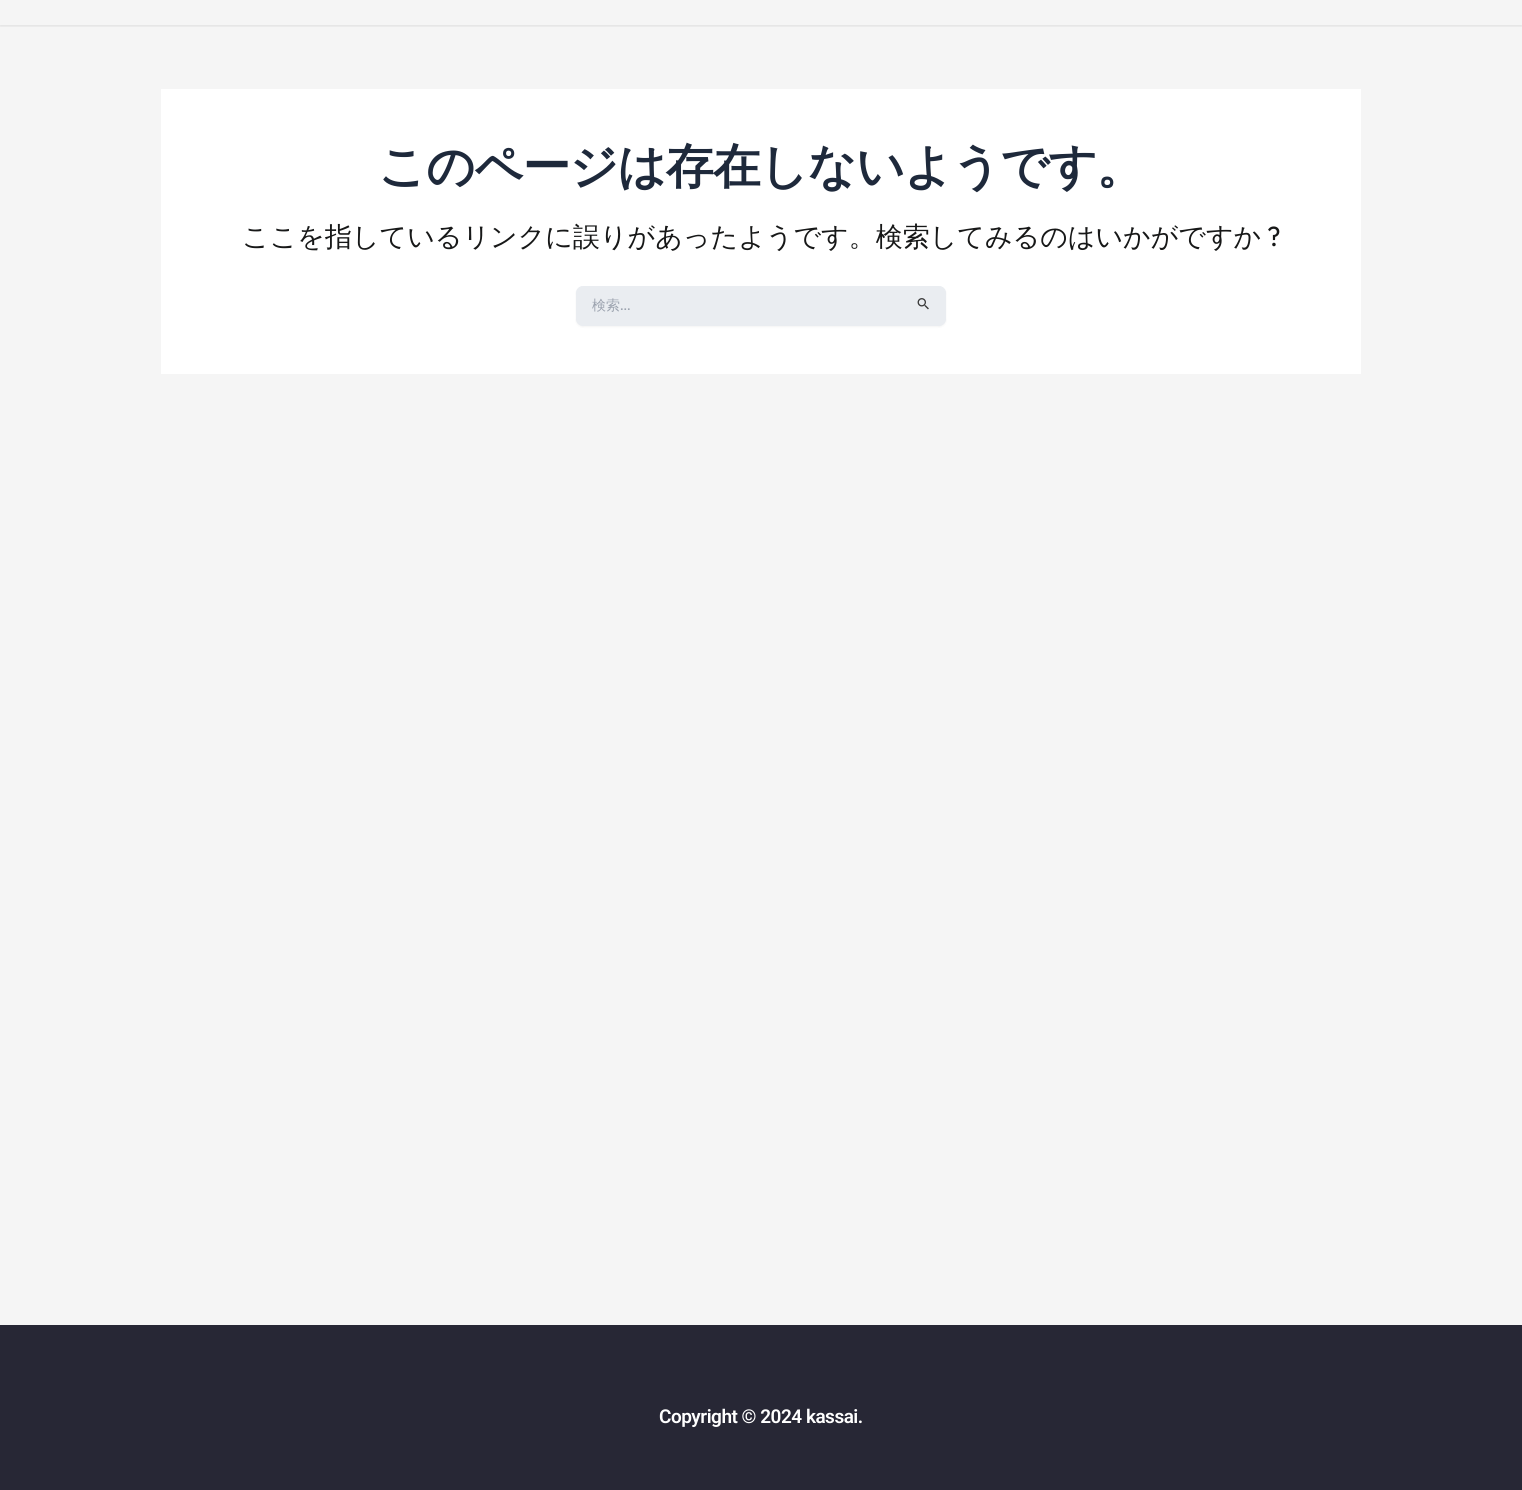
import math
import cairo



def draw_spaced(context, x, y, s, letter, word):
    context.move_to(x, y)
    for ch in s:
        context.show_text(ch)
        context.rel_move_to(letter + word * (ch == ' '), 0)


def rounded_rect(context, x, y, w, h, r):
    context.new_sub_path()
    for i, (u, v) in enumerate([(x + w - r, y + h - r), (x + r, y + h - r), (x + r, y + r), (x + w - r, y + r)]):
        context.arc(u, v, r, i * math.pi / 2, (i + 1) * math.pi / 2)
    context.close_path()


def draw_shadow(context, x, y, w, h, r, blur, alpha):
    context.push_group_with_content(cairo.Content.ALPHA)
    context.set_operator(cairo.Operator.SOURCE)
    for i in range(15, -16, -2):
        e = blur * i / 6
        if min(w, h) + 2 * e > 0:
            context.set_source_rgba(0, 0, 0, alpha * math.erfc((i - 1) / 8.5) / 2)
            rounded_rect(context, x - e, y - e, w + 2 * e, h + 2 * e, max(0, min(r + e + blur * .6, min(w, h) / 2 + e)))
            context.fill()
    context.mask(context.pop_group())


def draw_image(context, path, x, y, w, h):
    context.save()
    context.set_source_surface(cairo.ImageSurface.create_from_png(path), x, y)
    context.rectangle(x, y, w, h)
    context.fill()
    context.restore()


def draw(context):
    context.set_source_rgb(245 / 255, 245 / 255, 245 / 255)
    context.paint()
    context.save()
    context.rectangle(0, 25, 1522, 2)
    context.clip()
    context.set_source_rgb(0, 0, 0)
    draw_shadow(context, 0, 1, 1522, 25, 0, 1.5, 0.1)
    context.restore()
    context.set_source_rgb(1, 1, 1)
    context.rectangle(161, 89, 1200, 285)
    context.fill()
    context.set_source_rgb(0, 0, 0)
    draw_shadow(context, 576, 287, 370, 40, 7, 1, 0.05)
    context.set_source_rgb(234 / 255, 237 / 255, 241 / 255)
    rounded_rect(context, 576.5, 286.5, 369, 39, 6.5)
    context.fill_preserve()
    context.set_line_width(1)
    context.stroke()
    draw_image(context, "images/1.png", 917, 298, 12, 12)
    context.set_source_rgb(39 / 255, 39 / 255, 53 / 255)
    context.rectangle(0, 1325, 1522, 165)
    context.fill()
    context.select_font_face("WenQuanYi Zen Hei", cairo.FontSlant.NORMAL, cairo.FontWeight.BOLD)
    context.set_font_size(48)
    context.set_source_rgb(30 / 255, 41 / 255, 59 / 255)
    draw_spaced(context, 378, 183, "このページは存在しないようです。", -1, 0)
    context.select_font_face("WenQuanYi Zen Hei Medium")
    context.set_font_size(27)
    context.set_source_rgb(23 / 255, 24 / 255, 24 / 255)
    context.move_to(242, 246)
    context.show_text("ここを指しているリンクに誤りがあったようです。検索してみるのはいかがですか")
    context.select_font_face("Outfit")
    context.move_to(1267, 246)
    context.show_text("?")
    context.select_font_face("WenQuanYi Zen Hei Medium")
    context.set_font_size(14)
    context.set_source_rgb(156 / 255, 163 / 255, 175 / 255)
    context.move_to(592, 310)
    context.show_text("検索")
    context.select_font_face("Rubik")
    context.move_to(620, 310)
    context.show_text("...")
    context.select_font_face("Roboto SemiBold")
    context.set_font_size(19)
    context.set_source_rgb(1, 1, 1)
    draw_spaced(context, 659, 1423, "Copyright © 2024 kassai.", -0.5, 0)


surface = cairo.ImageSurface(cairo.Format.RGB24, 1522, 1490)
context = cairo.Context(surface)
options = cairo.FontOptions()
options.set_hint_metrics(cairo.HintMetrics.OFF)
options.set_hint_style(cairo.HintStyle.NONE)
context.set_font_options(options)
context.set_miter_limit(4)
draw(context)
surface.write_to_png("out.png")
